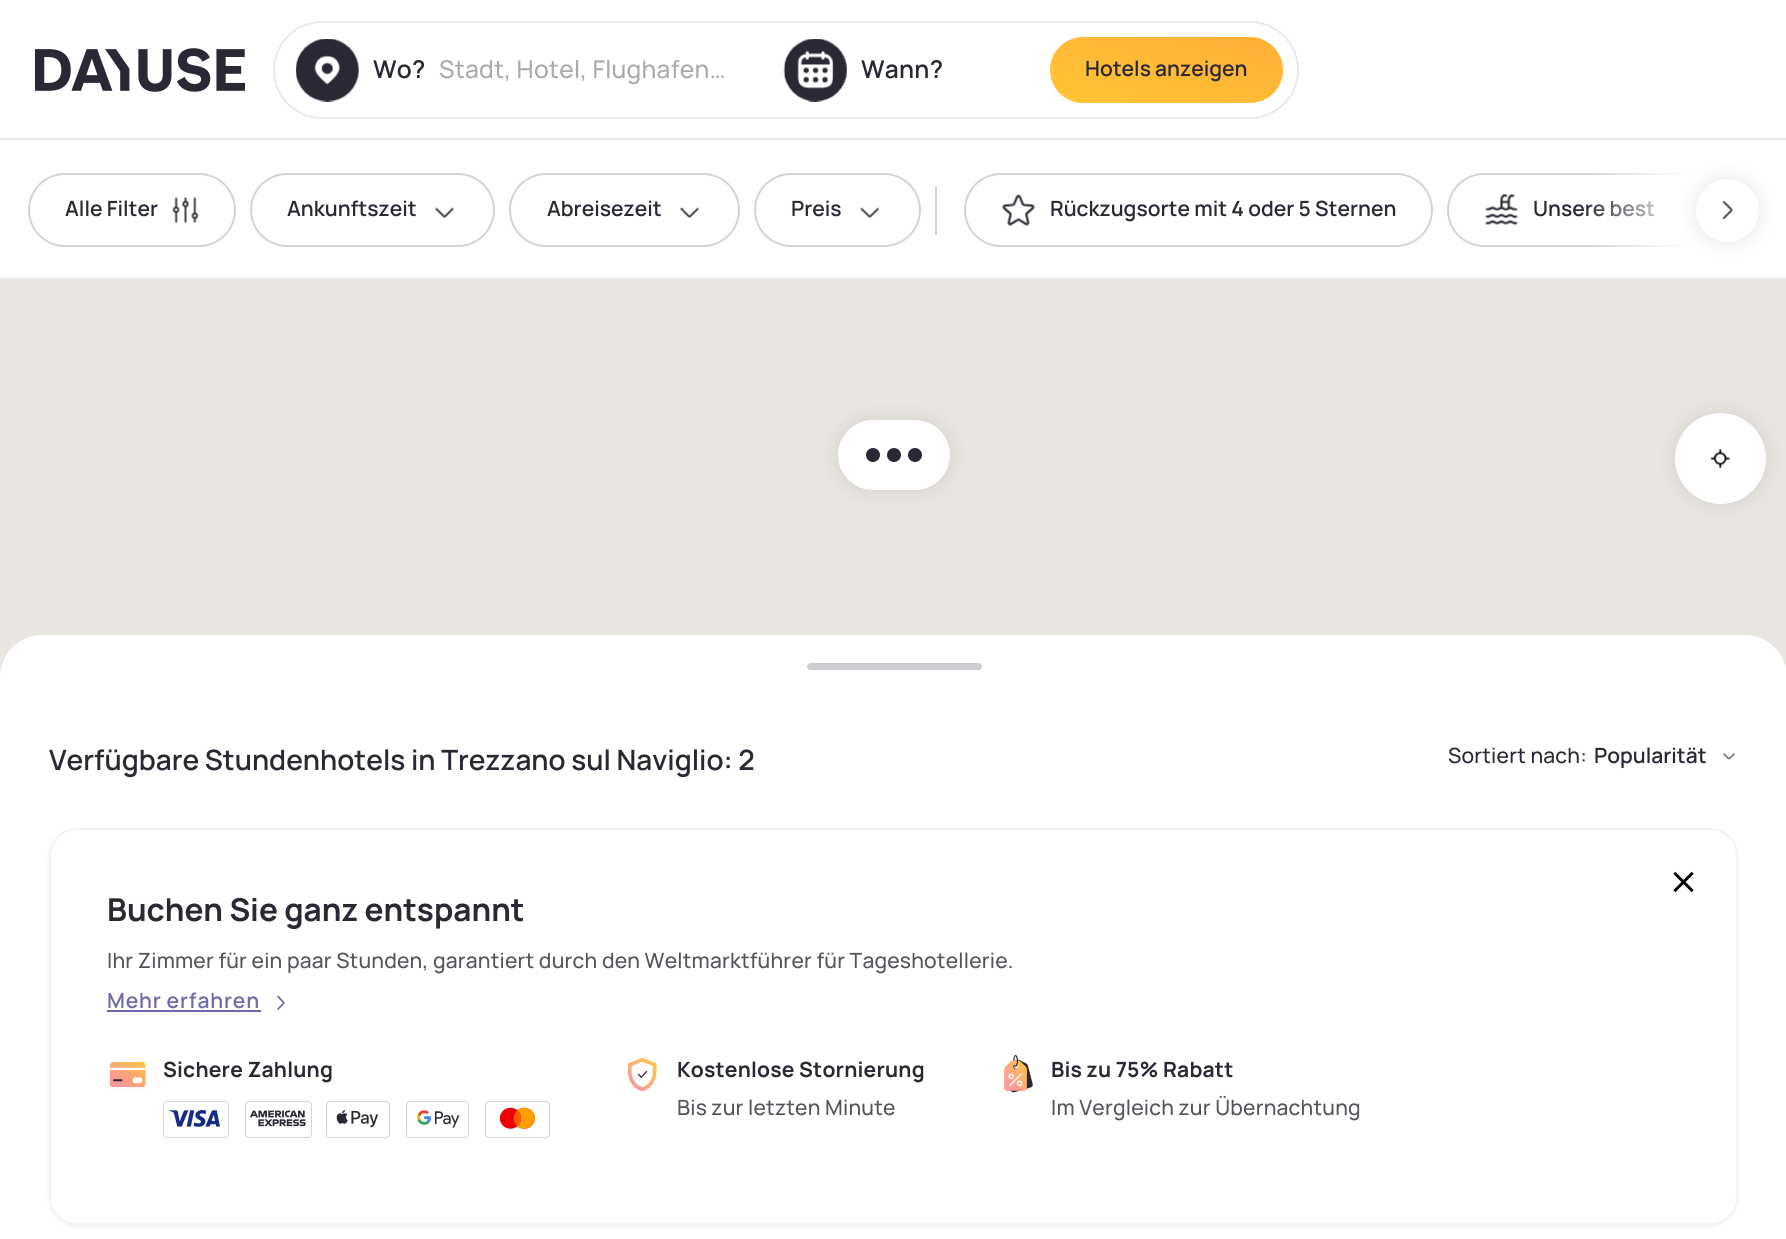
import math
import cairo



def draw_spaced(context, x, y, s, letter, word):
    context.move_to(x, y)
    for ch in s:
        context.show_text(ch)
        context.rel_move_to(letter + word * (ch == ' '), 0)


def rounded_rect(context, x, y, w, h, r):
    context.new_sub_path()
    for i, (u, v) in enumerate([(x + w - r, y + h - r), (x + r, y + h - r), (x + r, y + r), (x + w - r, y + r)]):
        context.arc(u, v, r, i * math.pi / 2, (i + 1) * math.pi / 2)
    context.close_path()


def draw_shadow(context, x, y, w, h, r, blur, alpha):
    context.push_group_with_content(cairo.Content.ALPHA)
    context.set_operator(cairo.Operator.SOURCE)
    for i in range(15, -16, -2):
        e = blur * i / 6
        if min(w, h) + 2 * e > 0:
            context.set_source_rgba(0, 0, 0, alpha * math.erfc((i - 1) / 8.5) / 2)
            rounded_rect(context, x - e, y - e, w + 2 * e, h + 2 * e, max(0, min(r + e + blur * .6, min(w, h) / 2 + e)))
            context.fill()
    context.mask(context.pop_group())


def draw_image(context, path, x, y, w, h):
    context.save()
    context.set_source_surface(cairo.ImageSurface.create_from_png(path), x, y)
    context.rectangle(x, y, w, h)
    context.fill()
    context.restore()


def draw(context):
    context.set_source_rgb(1, 1, 1)
    context.paint()
    context.set_source_rgb(229 / 255, 231 / 255, 235 / 255)
    context.rectangle(0, 138, 1786, 2)
    context.fill()
    draw_image(context, "images/1.png", 35, 48, 210, 44)
    rounded_rect(context, 274, 22, 1024, 96, 48)
    context.set_source_rgb(234 / 255, 234 / 255, 235 / 255)
    context.stroke()
    draw_image(context, "images/2.png", 296, 39, 63, 63)
    draw_image(context, "images/3.png", 783, 39, 64, 63)
    gradient = cairo.LinearGradient(1184, 9, 1149, 131)
    gradient.add_color_stop_rgba(0, 1, 175 / 255, 54 / 255, 1)
    gradient.add_color_stop_rgba(1, 1, 197 / 255, 54 / 255, 1)
    context.set_source(gradient)
    rounded_rect(context, 1050, 37, 233, 66, 33)
    context.fill()
    context.set_source_rgb(229 / 255, 231 / 255, 235 / 255)
    context.rectangle(0, 278, 1786, 2)
    context.fill()
    rounded_rect(context, 29, 174, 206, 72, 36)
    context.set_source_rgb(212 / 255, 212 / 255, 215 / 255)
    context.stroke()
    draw_image(context, "images/4.png", 172, 197, 27, 26)
    rounded_rect(context, 251, 174, 243, 72, 36)
    context.stroke()
    draw_image(context, "images/5.png", 435, 207, 19, 11)
    rounded_rect(context, 510, 174, 229, 72, 36)
    context.stroke()
    draw_image(context, "images/6.png", 680, 207, 19, 11)
    rounded_rect(context, 755, 174, 165, 72, 36)
    context.stroke()
    draw_image(context, "images/7.png", 860, 207, 20, 11)
    context.rectangle(935, 186, 2, 49)
    context.fill()
    rounded_rect(context, 965, 174, 467, 72, 36)
    context.stroke()
    draw_image(context, "images/8.png", 1002, 194, 33, 32)
    context.save()
    context.rectangle(950, 159, 809, 102)
    context.clip()
    rounded_rect(context, 1448, 174, 327, 72, 36)
    context.stroke()
    context.restore()
    draw_image(context, "images/9.png", 1485, 193, 33, 32)
    context.set_source_rgb(233 / 255, 230 / 255, 226 / 255)
    context.rectangle(0, 280, 1786, 397)
    context.fill()
    context.set_source_rgb(0, 0, 0)
    draw_shadow(context, 838, 420, 112, 70, 35, 9, 0.1)
    context.set_source_rgb(1, 1, 1)
    rounded_rect(context, 838, 420, 112, 70, 35)
    context.fill()
    context.set_source_rgb(41 / 255, 41 / 255, 53 / 255)
    context.arc(873, 455, 7, 0, 2 * math.pi)
    context.fill()
    context.arc(894, 455, 7, 0, 2 * math.pi)
    context.fill()
    context.arc(915, 455, 7, 0, 2 * math.pi)
    context.fill()
    context.set_source_rgb(0, 0, 0)
    draw_shadow(context, 1675, 413, 91, 91, 45.5, 9, 0.1)
    context.set_source_rgb(1, 1, 1)
    context.arc(1720.5, 458.5, 45.5, 0, 2 * math.pi)
    context.fill()
    draw_image(context, "images/11.png", 1710, 448, 21, 21)
    context.new_path()
    context.move_to(42, 635)
    context.line_to(1745, 635)
    context.curve_to(1768, 635, 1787, 654, 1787, 677)
    context.line_to(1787, 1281)
    context.line_to(0, 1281)
    context.line_to(0, 677)
    context.curve_to(0, 654, 19, 635, 42, 635)
    context.close_path()
    context.fill()
    context.set_source_rgb(208 / 255, 204 / 255, 211 / 255)
    rounded_rect(context, 807, 663, 175, 7, 3.5)
    context.fill()
    draw_image(context, "images/12.png", 1723, 752, 13, 8)
    context.set_source_rgb(0, 0, 0)
    draw_shadow(context, 49, 830, 1689, 397, 28, 2, 0.05)
    context.set_source_rgb(1, 1, 1)
    rounded_rect(context, 50, 829, 1687, 395, 27)
    context.fill_preserve()
    context.set_source_rgb(243 / 255, 244 / 255, 246 / 255)
    context.stroke()
    draw_image(context, "images/13.png", 1673, 871, 21, 22)
    context.set_source_rgb(110 / 255, 105 / 255, 172 / 255)
    context.rectangle(107, 1010, 154, 2)
    context.fill()
    context.new_path()
    context.move_to(278, 996.5)
    context.line_to(284, 1003)
    context.line_to(278, 1009)
    context.set_line_width(1.7)
    context.set_line_cap(cairo.LineCap.ROUND)
    context.set_line_join(cairo.LineJoin.ROUND)
    context.stroke()
    draw_image(context, "images/14.png", 110, 1062, 36, 28)
    draw_image(context, "images/15.png", 163, 1101, 66, 37)
    draw_image(context, "images/16.png", 245, 1101, 67, 37)
    draw_image(context, "images/17.png", 326, 1101, 64, 37)
    draw_image(context, "images/18.png", 406, 1101, 63, 37)
    draw_image(context, "images/19.png", 485, 1101, 65, 37)
    draw_image(context, "images/20.png", 627, 1058, 30, 34)
    draw_image(context, "images/21.png", 1004, 1055, 29, 38)
    context.select_font_face("Manrope SemiBold")
    context.set_font_size(24.5)
    context.set_source_rgb(41 / 255, 41 / 255, 53 / 255)
    draw_spaced(context, 373, 78, "Wo?", 0.25, 0)
    context.select_font_face("Manrope Medium")
    context.set_source_rgb(169 / 255, 169 / 255, 174 / 255)
    draw_spaced(context, 439, 78, "Stadt, Hotel, Flughafen…", 0.25, 0)
    context.select_font_face("Manrope SemiBold")
    context.set_source_rgb(41 / 255, 41 / 255, 53 / 255)
    draw_spaced(context, 861, 78, "Wann?", 0.25, 0)
    context.set_font_size(21)
    context.move_to(1085, 76)
    context.show_text("Hotels anzeigen")
    context.move_to(65, 216)
    context.show_text("Alle Filter")
    context.move_to(287, 216)
    context.show_text("Ankunftszeit")
    context.move_to(547, 216)
    context.show_text("Abreisezeit")
    context.move_to(791, 216)
    context.show_text("Preis")
    context.move_to(1050, 216)
    context.show_text("Rückzugsorte mit 4 oder 5 Sternen")
    context.move_to(1533, 216)
    context.show_text("Unsere best")
    gradient = cairo.LinearGradient(1759, 210, 1584, 210)
    gradient.add_color_stop_rgba(0.4, 1, 1, 1, 1)
    gradient.add_color_stop_rgba(1, 1, 1, 1, 0)
    context.set_source(gradient)
    context.rectangle(1586, 173, 173, 74)
    context.fill()
    context.set_source_rgb(0, 0, 0)
    draw_shadow(context, 1696, 179, 63, 63, 31.5, 9, 0.1)
    context.set_source_rgb(1, 1, 1)
    context.arc(1727.5, 210.5, 31.5, 0, 2 * math.pi)
    context.fill()
    draw_image(context, "images/10.png", 1722, 200, 11, 20)
    context.set_font_size(28)
    context.set_source_rgb(41 / 255, 41 / 255, 53 / 255)
    context.move_to(49, 770)
    context.show_text("Verfügbare Stundenhotels in Trezzano sul Naviglio: 2")
    context.select_font_face("Manrope Medium")
    context.set_font_size(21)
    draw_spaced(context, 1448, 763, "Sortiert nach:", 0.2, 0)
    context.select_font_face("Manrope SemiBold")
    context.move_to(1594, 763)
    context.show_text("Popularität")
    context.select_font_face("Manrope", cairo.FontSlant.NORMAL, cairo.FontWeight.BOLD)
    context.set_font_size(31.5)
    context.move_to(107, 921)
    context.show_text("Buchen Sie ganz entspannt")
    context.select_font_face("Manrope Medium")
    context.set_font_size(21)
    context.set_source_rgb(84 / 255, 84 / 255, 93 / 255)
    draw_spaced(context, 107, 968, "Ihr Zimmer für ein paar Stunden, garantiert durch den Weltmarktführer für Tageshotellerie.", 0.2, 0)
    context.select_font_face("Manrope SemiBold")
    context.set_source_rgb(110 / 255, 105 / 255, 172 / 255)
    draw_spaced(context, 107, 1008, "Mehr erfahren", 0.8, 0)
    context.select_font_face("Manrope", cairo.FontSlant.NORMAL, cairo.FontWeight.BOLD)
    context.set_source_rgb(41 / 255, 41 / 255, 53 / 255)
    draw_spaced(context, 163, 1077, "Sichere Zahlung", 0.2, 0)
    draw_spaced(context, 677, 1077, "Kostenlose Stornierung", 0.2, 0)
    context.select_font_face("Manrope Medium")
    context.set_source_rgb(84 / 255, 84 / 255, 93 / 255)
    draw_spaced(context, 677, 1115, "Bis zur letzten Minute", 0.2, 0)
    context.select_font_face("Manrope", cairo.FontSlant.NORMAL, cairo.FontWeight.BOLD)
    context.set_source_rgb(41 / 255, 41 / 255, 53 / 255)
    draw_spaced(context, 1051, 1077, "Bis zu 75% Rabatt", 0.2, 0)
    context.select_font_face("Manrope Medium")
    context.set_source_rgb(84 / 255, 84 / 255, 93 / 255)
    draw_spaced(context, 1051, 1115, "Im Vergleich zur Übernachtung", 0.2, 0)


surface = cairo.ImageSurface(cairo.Format.RGB24, 1786, 1239)
context = cairo.Context(surface)
options = cairo.FontOptions()
options.set_hint_metrics(cairo.HintMetrics.OFF)
options.set_hint_style(cairo.HintStyle.NONE)
context.set_font_options(options)
context.set_miter_limit(4)
draw(context)
surface.write_to_png("out.png")
